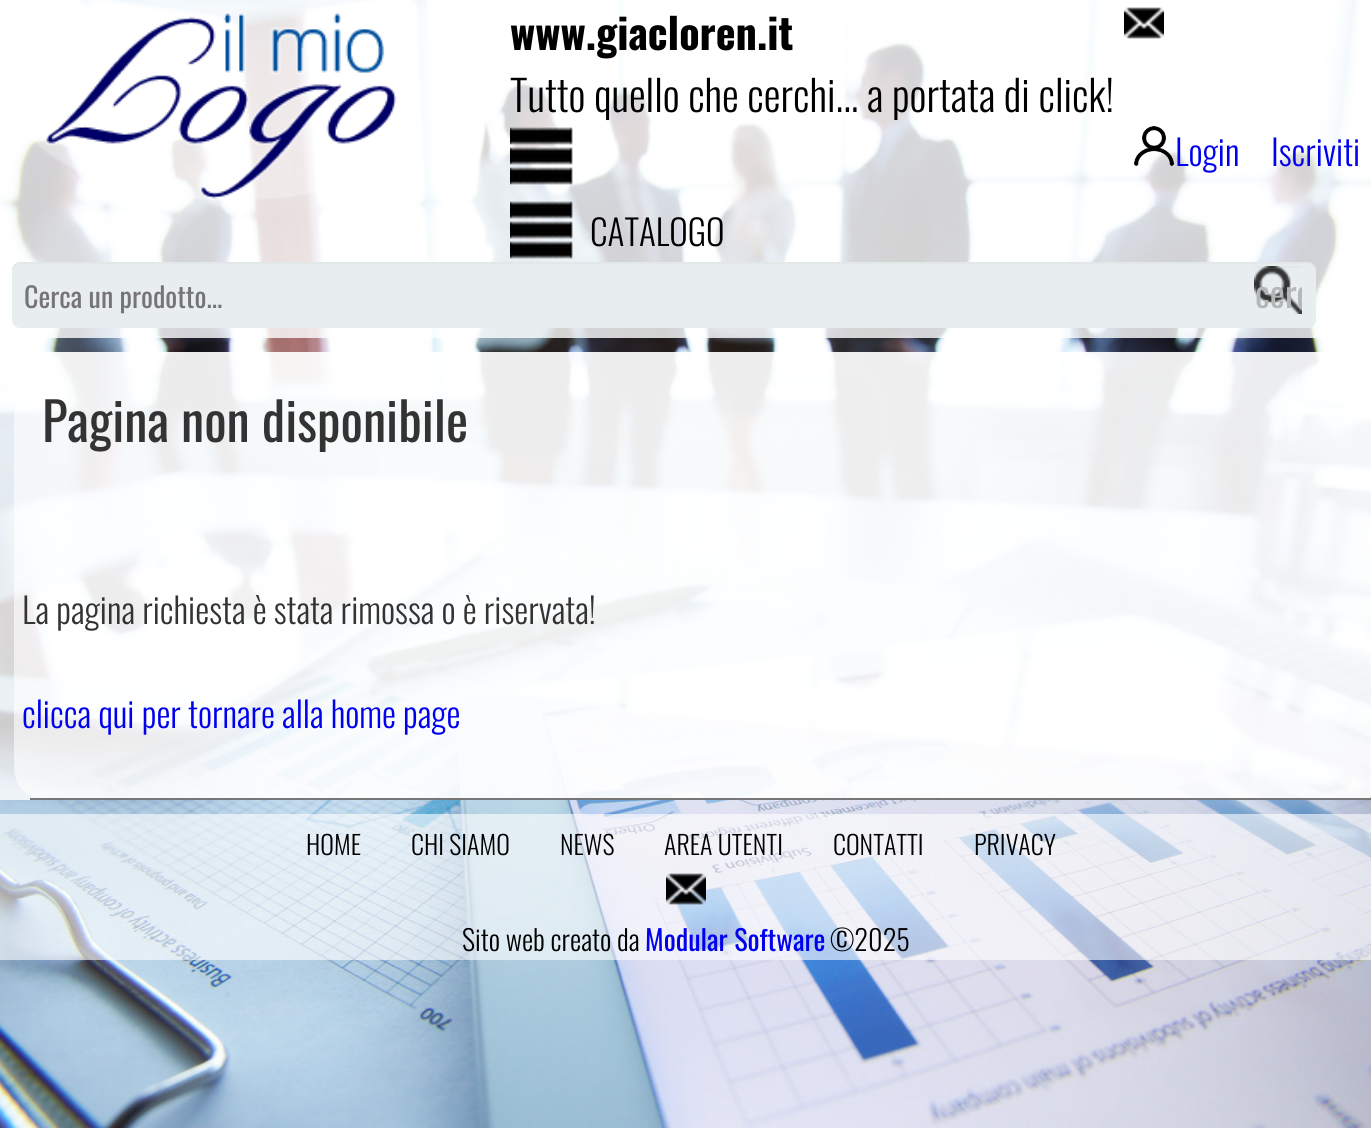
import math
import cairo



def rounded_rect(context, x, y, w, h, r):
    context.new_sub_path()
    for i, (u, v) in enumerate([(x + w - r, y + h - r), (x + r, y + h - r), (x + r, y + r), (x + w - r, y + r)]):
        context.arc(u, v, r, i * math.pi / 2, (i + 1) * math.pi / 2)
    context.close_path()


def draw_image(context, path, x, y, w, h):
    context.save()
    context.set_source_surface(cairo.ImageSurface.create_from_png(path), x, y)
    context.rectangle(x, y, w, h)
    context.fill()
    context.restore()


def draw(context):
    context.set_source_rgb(1, 1, 1)
    context.paint()
    draw_image(context, "images/1.png", 0, 0, 1371, 1128)
    context.set_source_rgba(1, 1, 1, 0.8)
    context.rectangle(0, 0, 1371, 338)
    context.fill()
    draw_image(context, "images/2.png", 35, 4, 362, 196)
    draw_image(context, "images/3.png", 1124, 7, 40, 32)
    draw_image(context, "images/4.png", 510, 127, 63, 58)
    draw_image(context, "images/5.png", 1134, 126, 40, 40)
    draw_image(context, "images/6.png", 510, 201, 63, 58)
    context.set_source_rgb(232 / 255, 238 / 255, 239 / 255)
    rounded_rect(context, 12, 262, 1304, 66, 8)
    context.fill()
    context.set_source_rgba(0, 0, 0, 0.03)
    context.new_path()
    context.move_to(20, 264)
    context.line_to(1308, 264)
    context.curve_to(1312, 264, 1316, 268, 1316, 272)
    context.line_to(1316, 270)
    context.curve_to(1316, 266, 1312, 262, 1308, 262)
    context.line_to(20, 262)
    context.curve_to(16, 262, 12, 266, 12, 270)
    context.line_to(12, 272)
    context.curve_to(12, 268, 16, 264, 20, 264)
    context.close_path()
    context.fill()
    draw_image(context, "images/7.png", 1254, 266, 48, 48)
    context.rectangle(1254, 266, 48, 2)
    context.fill()
    context.set_source_rgba(1, 1, 1, 0.8)
    context.rectangle(0, 352, 1371, 448)
    context.fill()
    draw_image(context, "images/8.png", 14, 352, 1357, 446)
    context.set_source_rgb(119 / 255, 119 / 255, 119 / 255)
    context.rectangle(30, 798, 1341, 2)
    context.fill()
    context.set_source_rgba(1, 1, 1, 0.6)
    context.rectangle(0, 814, 1371, 146)
    context.fill()
    draw_image(context, "images/9.png", 666, 873, 40, 32)
    context.select_font_face("Oswald", cairo.FontSlant.NORMAL, cairo.FontWeight.BOLD)
    context.set_font_size(42.25)
    context.set_source_rgb(0, 0, 0)
    context.move_to(510, 50)
    context.show_text("www.giacloren.it")
    context.select_font_face("Oswald Light")
    context.move_to(510, 112)
    context.show_text("Tutto quello che cerchi... a portata di click!")
    context.set_font_size(35.25)
    context.set_source_rgb(0, 0, 238 / 255)
    context.move_to(1175, 166)
    context.show_text("Login")
    context.move_to(1271, 166)
    context.show_text("Iscriviti")
    context.set_source_rgb(0, 0, 0)
    context.move_to(590, 246)
    context.show_text("CATALOGO")
    context.select_font_face("Oswald")
    context.set_font_size(28)
    context.set_source_rgb(117 / 255, 117 / 255, 117 / 255)
    context.move_to(24, 308)
    context.show_text("Cerca un prodotto...")
    context.save()
    context.rectangle(1254, 266, 48, 48)
    context.clip()
    context.set_font_size(36)
    context.set_source_rgb(179 / 255, 183 / 255, 184 / 255)
    context.move_to(1255, 308)
    context.show_text("cerc")
    context.restore()
    context.set_font_size(52.75)
    context.set_source_rgb(51 / 255, 51 / 255, 51 / 255)
    context.move_to(42, 442)
    context.show_text("Pagina non disponibile")
    context.select_font_face("Oswald Light")
    context.set_font_size(35.25)
    context.move_to(22, 624)
    context.show_text("La pagina richiesta è stata rimossa o è riservata!")
    context.set_source_rgb(0, 0, 238 / 255)
    context.move_to(22, 728)
    context.show_text("clicca qui per tornare alla home page")
    context.set_font_size(26)
    context.set_source_rgb(0, 0, 0)
    context.move_to(306, 855)
    context.show_text("HOME")
    context.move_to(411, 855)
    context.show_text("CHI SIAMO")
    context.move_to(560, 855)
    context.show_text("NEWS")
    context.move_to(664, 855)
    context.show_text("AREA UTENTI")
    context.move_to(833, 855)
    context.show_text("CONTATTI")
    context.move_to(974, 855)
    context.show_text("PRIVACY")
    context.set_font_size(28.25)
    context.move_to(462, 951)
    context.show_text("Sito web creato da")
    context.select_font_face("Oswald")
    context.set_source_rgb(0, 0, 238 / 255)
    context.move_to(645, 951)
    context.show_text("Modular Software")
    context.select_font_face("Oswald Light")
    context.set_source_rgb(0, 0, 0)
    context.move_to(830, 951)
    context.show_text("©2025")


surface = cairo.ImageSurface(cairo.Format.RGB24, 1371, 1128)
context = cairo.Context(surface)
options = cairo.FontOptions()
options.set_hint_metrics(cairo.HintMetrics.OFF)
options.set_hint_style(cairo.HintStyle.NONE)
context.set_font_options(options)
context.set_miter_limit(4)
draw(context)
surface.write_to_png("out.png")
